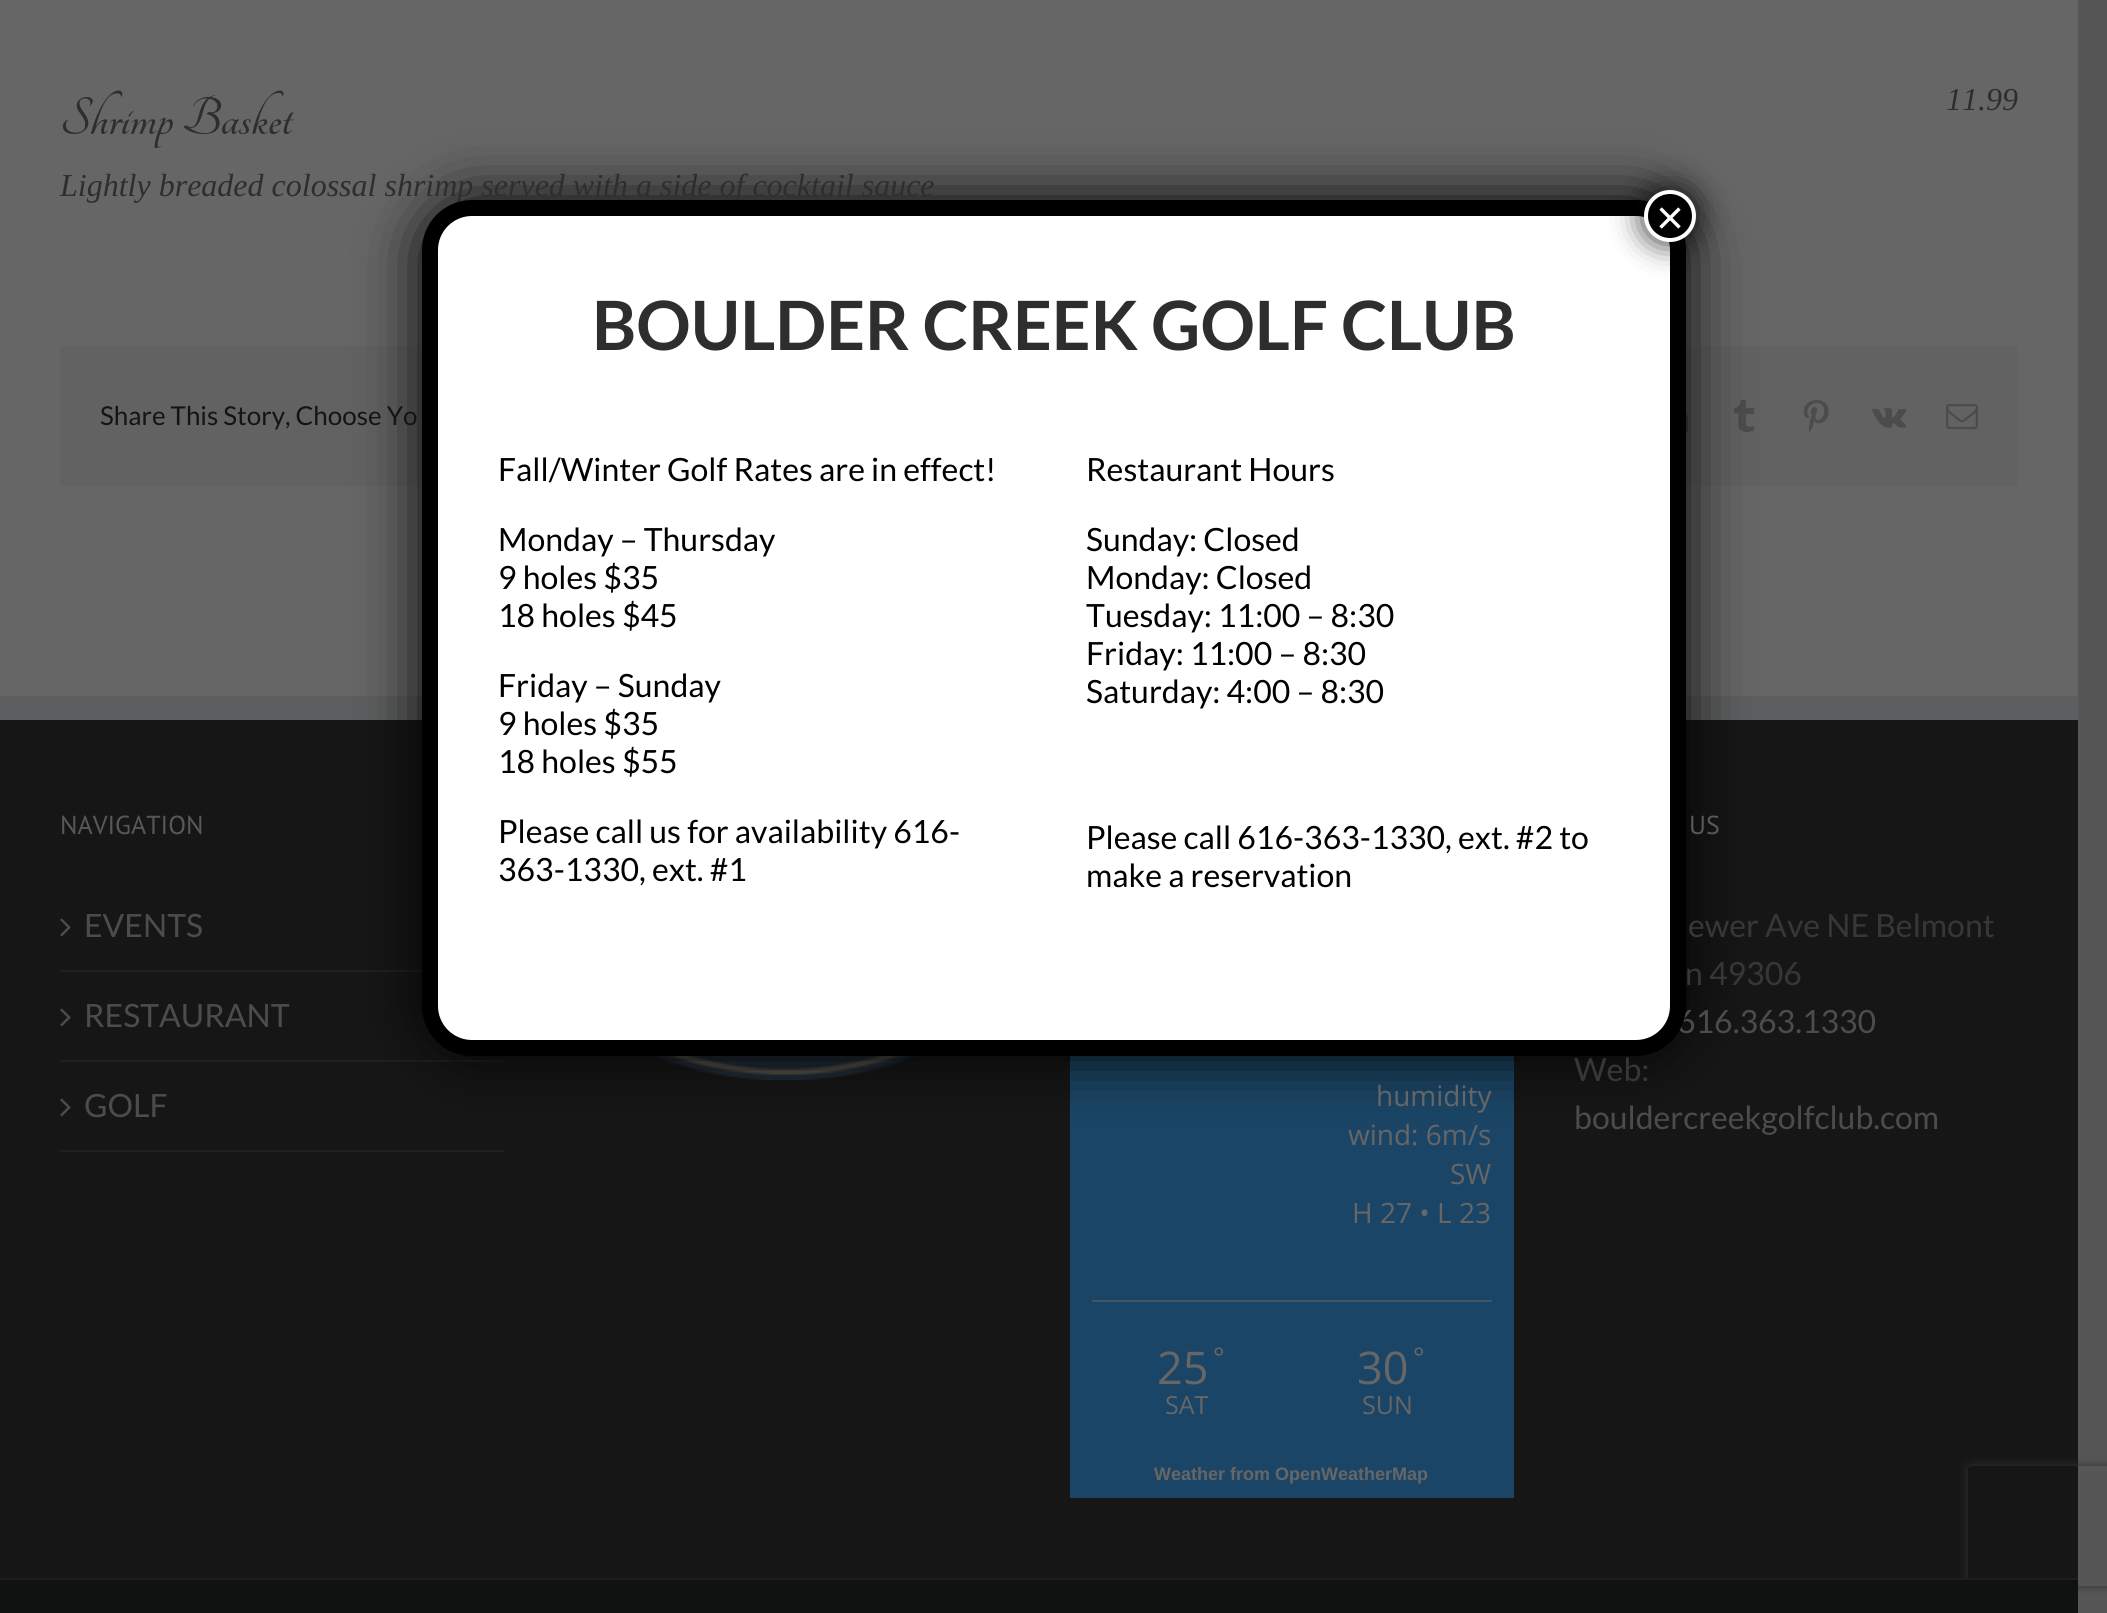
import math
import cairo



def rounded_rect(context, x, y, w, h, r):
    context.new_sub_path()
    for i, (u, v) in enumerate([(x + w - r, y + h - r), (x + r, y + h - r), (x + r, y + r), (x + w - r, y + r)]):
        context.arc(u, v, r, i * math.pi / 2, (i + 1) * math.pi / 2)
    context.close_path()


def draw_shadow(context, x, y, w, h, r, blur, alpha):
    context.push_group_with_content(cairo.Content.ALPHA)
    context.set_operator(cairo.Operator.SOURCE)
    for i in range(15, -16, -2):
        e = blur * i / 6
        if min(w, h) + 2 * e > 0:
            context.set_source_rgba(0, 0, 0, alpha * math.erfc((i - 1) / 8.5) / 2)
            rounded_rect(context, x - e, y - e, w + 2 * e, h + 2 * e, max(0, min(r + e + blur * .6, min(w, h) / 2 + e)))
            context.fill()
    context.mask(context.pop_group())


def draw_image(context, path, x, y, w, h):
    context.save()
    context.set_source_surface(cairo.ImageSurface.create_from_png(path), x, y)
    context.rectangle(x, y, w, h)
    context.fill()
    context.restore()


def draw(context):
    context.set_source_rgb(86 / 255, 86 / 255, 86 / 255)
    context.paint()
    context.set_source_rgb(102 / 255, 102 / 255, 102 / 255)
    context.rectangle(0, 0, 2078, 696)
    context.fill()
    context.set_source_rgb(98 / 255, 98 / 255, 98 / 255)
    context.rectangle(60, 346, 1958, 140)
    context.fill()
    draw_image(context, "images/1.png", 1686, 412, 2, 20)
    draw_image(context, "images/2.png", 1734, 400, 20, 32)
    draw_image(context, "images/3.png", 1803, 400, 26, 32)
    draw_image(context, "images/4.png", 1872, 408, 35, 20)
    draw_image(context, "images/5.png", 1946, 404, 32, 26)
    context.set_source_rgb(22 / 255, 22 / 255, 23 / 255)
    context.rectangle(0, 720, 2078, 858)
    context.fill()
    context.set_source_rgb(93 / 255, 94 / 255, 95 / 255)
    context.rectangle(0, 696, 2078, 24)
    context.fill()
    context.set_source_rgb(32 / 255, 32 / 255, 33 / 255)
    context.rectangle(60, 970, 362, 2)
    context.fill()
    draw_image(context, "images/6.png", 60, 918, 11, 19)
    context.rectangle(60, 1060, 444, 2)
    context.fill()
    draw_image(context, "images/6.png", 60, 1008, 11, 19)
    context.rectangle(60, 1150, 444, 2)
    context.fill()
    draw_image(context, "images/6.png", 60, 1098, 11, 19)
    draw_image(context, "images/7.png", 652, 1056, 267, 24)
    context.set_source_rgb(27 / 255, 69 / 255, 102 / 255)
    context.rectangle(1070, 1056, 444, 442)
    context.fill()
    context.set_source_rgb(64 / 255, 86 / 255, 102 / 255)
    context.rectangle(1092, 1300, 400, 2)
    context.fill()
    context.save()
    context.set_fill_rule(cairo.FillRule.EVEN_ODD)
    context.new_path()
    context.move_to(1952, 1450)
    context.line_to(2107, 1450)
    context.line_to(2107, 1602)
    context.line_to(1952, 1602)
    context.close_path()
    context.move_to(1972, 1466)
    context.line_to(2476, 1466)
    context.curve_to(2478, 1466, 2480, 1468, 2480, 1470)
    context.line_to(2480, 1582)
    context.curve_to(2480, 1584, 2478, 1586, 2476, 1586)
    context.line_to(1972, 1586)
    context.curve_to(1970, 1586, 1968, 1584, 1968, 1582)
    context.line_to(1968, 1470)
    context.curve_to(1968, 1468, 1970, 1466, 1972, 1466)
    context.close_path()
    context.clip()
    context.set_source_rgb(51 / 255, 51 / 255, 51 / 255)
    draw_shadow(context, 1968, 1466, 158, 120, 4, 5, 1)
    context.restore()
    context.set_source_rgb(16 / 255, 17 / 255, 17 / 255)
    context.rectangle(0, 1580, 2078, 33)
    context.fill()
    context.set_source_rgb(30 / 255, 30 / 255, 31 / 255)
    context.rectangle(0, 1578, 2078, 2)
    context.fill()
    context.set_source_rgb(2 / 255, 2 / 255, 2 / 255)
    draw_shadow(context, 422, 200, 1264, 856, 50, 30, 1)
    context.select_font_face("Tangerine", cairo.FontSlant.NORMAL, cairo.FontWeight.BOLD)
    context.set_font_size(57.5)
    context.set_source_rgb(46 / 255, 46 / 255, 46 / 255)
    context.move_to(60, 134)
    context.show_text("Shrimp Basket")
    context.select_font_face("Liberation Serif", cairo.FontSlant.ITALIC)
    context.set_font_size(32)
    context.move_to(1946, 110)
    context.show_text("11.99")
    context.move_to(60, 196)
    context.show_text("Lightly breaded colossal shrimp served with a side of cocktail sauce")
    context.select_font_face("Lato")
    context.set_font_size(26)
    context.set_source_rgb(20 / 255, 20 / 255, 20 / 255)
    context.move_to(100, 425)
    context.show_text("Share This Story, Choose Yo")
    context.select_font_face("PT Sans")
    context.set_source_rgb(88 / 255, 88 / 255, 88 / 255)
    context.move_to(60, 834)
    context.show_text("NAVIGATION")
    context.select_font_face("Lato")
    context.set_font_size(32)
    context.set_source_rgb(76 / 255, 76 / 255, 76 / 255)
    context.move_to(84, 937)
    context.show_text("EVENTS")
    context.move_to(84, 1027)
    context.show_text("RESTAURANT")
    context.move_to(84, 1117)
    context.show_text("GOLF")
    context.select_font_face("PT Sans")
    context.set_font_size(26)
    context.set_source_rgb(88 / 255, 88 / 255, 88 / 255)
    context.move_to(1689, 834)
    context.show_text("US")
    context.select_font_face("Lato")
    context.set_font_size(32)
    context.set_source_rgb(56 / 255, 55 / 255, 55 / 255)
    context.move_to(1688, 937)
    context.show_text("ewer Ave NE Belmont")
    context.move_to(1685, 985)
    context.show_text("n 49306")
    context.set_source_rgb(76 / 255, 76 / 255, 76 / 255)
    context.move_to(1677, 1033)
    context.show_text("616.363.1330")
    context.set_source_rgb(56 / 255, 55 / 255, 55 / 255)
    context.move_to(1574, 1081)
    context.show_text("Web:")
    context.set_source_rgb(76 / 255, 76 / 255, 76 / 255)
    context.move_to(1574, 1129)
    context.show_text("bouldercreekgolfclub.com")
    context.select_font_face("Open Sans")
    context.set_font_size(28)
    context.set_source_rgb(102 / 255, 102 / 255, 102 / 255)
    context.move_to(1376, 1106)
    context.show_text("humidity")
    context.move_to(1348, 1145)
    context.show_text("wind: 6m/s")
    context.move_to(1450, 1184)
    context.show_text("SW")
    context.move_to(1352, 1223)
    context.show_text("H 27 • L 23")
    context.set_font_size(45)
    context.move_to(1157, 1384)
    context.show_text("25")
    context.set_font_size(27)
    context.move_to(1213, 1367)
    context.show_text("°")
    context.set_font_size(25)
    context.move_to(1165, 1414)
    context.show_text("SAT")
    context.set_font_size(45)
    context.move_to(1357, 1384)
    context.show_text("30")
    context.set_font_size(27)
    context.move_to(1413, 1367)
    context.show_text("°")
    context.set_font_size(25)
    context.move_to(1362, 1414)
    context.show_text("SUN")
    context.select_font_face("Liberation Sans", cairo.FontSlant.NORMAL, cairo.FontWeight.BOLD)
    context.set_font_size(18)
    context.move_to(1154, 1480)
    context.show_text("Weather from OpenWeatherMap")
    context.set_source_rgb(1, 1, 1)
    rounded_rect(context, 430, 208, 1248, 840, 42)
    context.fill_preserve()
    context.set_source_rgb(0, 0, 0)
    context.set_line_width(16)
    context.stroke()
    context.set_source_rgb(2 / 255, 2 / 255, 2 / 255)
    draw_shadow(context, 1642, 188, 56, 56, 28, 15, 0.75)
    context.set_source_rgb(0, 0, 0)
    context.arc(1670, 216, 24, 0, 2 * math.pi)
    context.fill_preserve()
    context.set_source_rgb(1, 1, 1)
    context.set_line_width(4)
    context.stroke()
    context.select_font_face("Liberation Sans")
    context.set_font_size(48)
    context.move_to(1656, 234)
    context.show_text("×")
    context.select_font_face("Lato", cairo.FontSlant.NORMAL, cairo.FontWeight.BOLD)
    context.set_font_size(68)
    context.set_source_rgb(46 / 255, 46 / 255, 46 / 255)
    context.move_to(592, 350)
    context.show_text("BOULDER CREEK GOLF CLUB")
    context.select_font_face("Lato")
    context.set_font_size(32)
    context.set_source_rgb(0, 0, 0)
    context.move_to(498, 481)
    context.show_text("Fall/Winter Golf Rates are in effect!")
    context.move_to(498, 551)
    context.show_text("Monday – Thursday")
    context.move_to(498, 589)
    context.show_text("9 holes $35")
    context.move_to(498, 627)
    context.show_text("18 holes $45")
    context.move_to(498, 697)
    context.show_text("Friday – Sunday")
    context.move_to(498, 735)
    context.show_text("9 holes $35")
    context.move_to(498, 773)
    context.show_text("18 holes $55")
    context.move_to(498, 843)
    context.show_text("Please call us for availability 616-")
    context.move_to(498, 881)
    context.show_text("363-1330, ext. #1")
    context.move_to(1086, 481)
    context.show_text("Restaurant Hours")
    context.move_to(1086, 551)
    context.show_text("Sunday: Closed")
    context.move_to(1086, 589)
    context.show_text("Monday: Closed")
    context.move_to(1086, 627)
    context.show_text("Tuesday: 11:00 – 8:30")
    context.move_to(1086, 665)
    context.show_text("Friday: 11:00 – 8:30")
    context.move_to(1086, 703)
    context.show_text("Saturday: 4:00 – 8:30")
    context.move_to(1086, 849)
    context.show_text("Please call 616-363-1330, ext. #2 to")
    context.move_to(1086, 887)
    context.show_text("make a reservation")


surface = cairo.ImageSurface(cairo.Format.RGB24, 2107, 1613)
context = cairo.Context(surface)
options = cairo.FontOptions()
options.set_hint_metrics(cairo.HintMetrics.OFF)
options.set_hint_style(cairo.HintStyle.NONE)
context.set_font_options(options)
context.set_miter_limit(4)
draw(context)
surface.write_to_png("out.png")
